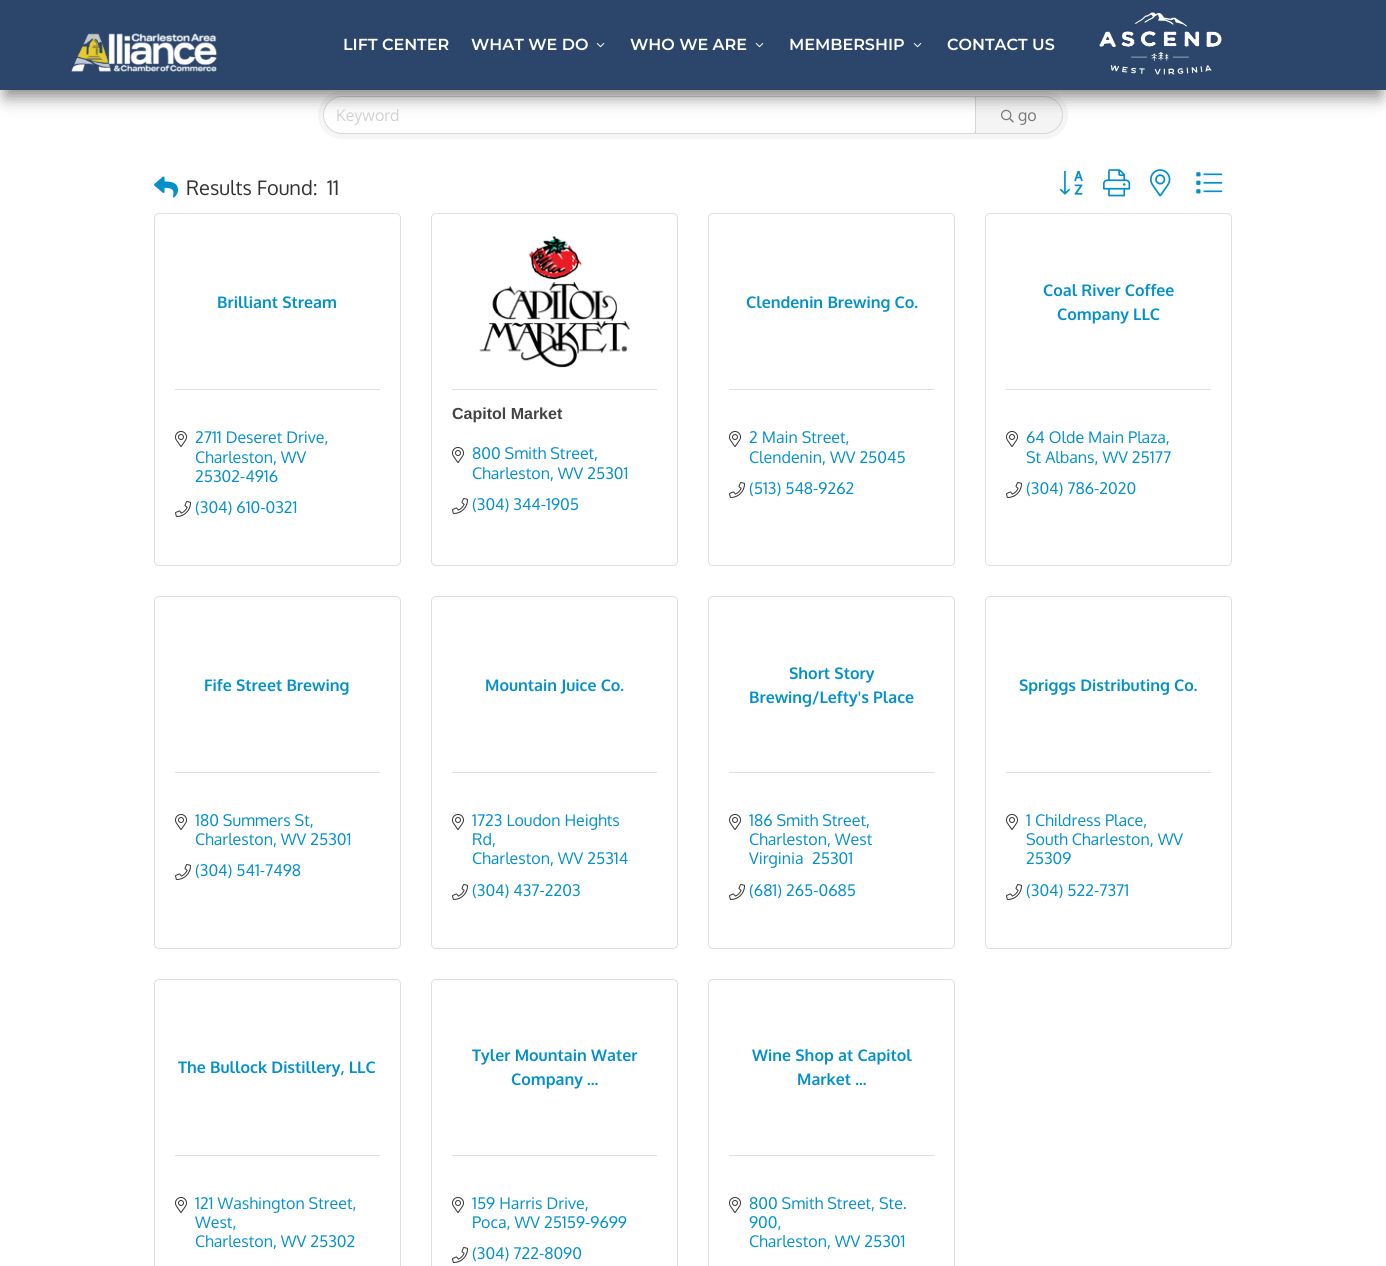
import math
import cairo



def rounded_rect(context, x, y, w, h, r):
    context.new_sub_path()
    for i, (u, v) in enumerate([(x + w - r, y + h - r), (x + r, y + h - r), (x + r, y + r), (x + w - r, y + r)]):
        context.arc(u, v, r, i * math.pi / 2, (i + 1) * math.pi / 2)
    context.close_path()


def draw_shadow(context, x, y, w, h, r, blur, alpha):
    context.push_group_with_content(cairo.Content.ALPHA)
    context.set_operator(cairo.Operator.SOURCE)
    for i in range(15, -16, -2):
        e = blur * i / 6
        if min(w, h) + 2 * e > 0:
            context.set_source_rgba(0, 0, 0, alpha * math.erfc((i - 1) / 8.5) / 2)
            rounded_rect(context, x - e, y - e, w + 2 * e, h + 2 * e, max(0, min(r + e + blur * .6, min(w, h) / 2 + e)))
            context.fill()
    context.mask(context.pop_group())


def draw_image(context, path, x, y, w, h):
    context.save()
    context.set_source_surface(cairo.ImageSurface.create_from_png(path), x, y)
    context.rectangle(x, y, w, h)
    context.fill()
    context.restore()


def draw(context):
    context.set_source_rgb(1, 1, 1)
    context.paint()
    context.set_source_rgb(245 / 255, 245 / 255, 245 / 255)
    rounded_rect(context, 318, 91, 750, 48, 24)
    context.fill()
    context.set_source_rgb(1, 1, 1)
    context.new_path()
    context.move_to(342, 97)
    context.line_to(973, 97)
    context.curve_to(974, 97, 975, 98, 975, 99)
    context.line_to(975, 131)
    context.curve_to(975, 132, 974, 133, 973, 133)
    context.line_to(342, 133)
    context.curve_to(332, 133, 324, 125, 324, 115)
    context.curve_to(324, 105, 332, 97, 342, 97)
    context.close_path()
    context.fill()
    context.new_path()
    context.move_to(342, 96.5)
    context.line_to(973, 96.5)
    context.curve_to(974.5, 96.5, 975.5, 97.5, 975.5, 99)
    context.line_to(975.5, 131)
    context.curve_to(975.5, 132.5, 974.5, 133.5, 973, 133.5)
    context.line_to(342, 133.5)
    context.curve_to(332, 133.5, 323.5, 125, 323.5, 115)
    context.curve_to(323.5, 105, 332, 96.5, 342, 96.5)
    context.close_path()
    context.set_source_rgba(0, 0, 0, 0.12)
    context.set_line_width(1)
    context.stroke()
    context.set_source_rgb(244 / 255, 244 / 255, 244 / 255)
    context.new_path()
    context.move_to(975.5, 96.5)
    context.line_to(1044, 96.5)
    context.curve_to(1054, 96.5, 1062.5, 105, 1062.5, 115)
    context.curve_to(1062.5, 125, 1054, 133.5, 1044, 133.5)
    context.line_to(975.5, 133.5)
    context.close_path()
    context.fill_preserve()
    context.set_source_rgb(214 / 255, 214 / 255, 214 / 255)
    context.stroke()
    draw_image(context, "images/4.png", 1001, 109, 13, 14)
    context.set_source_rgb(0, 0, 0)
    draw_shadow(context, 6, 18, 1374, 78, 0, 9, 0.5)
    context.set_source_rgb(43 / 255, 69 / 255, 107 / 255)
    context.rectangle(0, 0, 1386, 90)
    context.fill()
    draw_image(context, "images/1.png", 71, 33, 146, 39)
    draw_image(context, "images/2.png", 596, 43, 9, 5)
    draw_image(context, "images/2.png", 755, 43, 9, 5)
    draw_image(context, "images/2.png", 913, 43, 9, 5)
    draw_image(context, "images/3.png", 1099, 12, 123, 63)
    draw_image(context, "images/5.png", 154, 176, 24, 22)
    draw_image(context, "images/6.png", 1059, 170, 24, 25)
    draw_image(context, "images/7.png", 1103, 169, 28, 28)
    draw_image(context, "images/8.png", 1150, 169, 21, 28)
    draw_image(context, "images/9.png", 1196, 172, 27, 22)
    rounded_rect(context, 154.5, 213.5, 246, 352, 4.5)
    context.set_source_rgb(223 / 255, 223 / 255, 223 / 255)
    context.stroke()
    context.rectangle(175, 389, 205, 1)
    context.fill()
    draw_image(context, "images/10.png", 175, 431, 12, 16)
    draw_image(context, "images/11.png", 175, 501, 16, 16)
    rounded_rect(context, 431.5, 213.5, 246, 352, 4.5)
    context.stroke()
    draw_image(context, "images/12.png", 479, 236, 151, 132)
    context.rectangle(452, 389, 205, 1)
    context.fill()
    draw_image(context, "images/10.png", 452, 447, 12, 16)
    draw_image(context, "images/11.png", 452, 498, 16, 16)
    rounded_rect(context, 708.5, 213.5, 246, 352, 4.5)
    context.stroke()
    context.rectangle(729, 389, 205, 1)
    context.fill()
    draw_image(context, "images/10.png", 729, 431, 12, 16)
    draw_image(context, "images/11.png", 729, 482, 16, 16)
    rounded_rect(context, 985.5, 213.5, 246, 352, 4.5)
    context.stroke()
    context.rectangle(1006, 389, 205, 1)
    context.fill()
    draw_image(context, "images/10.png", 1006, 431, 12, 16)
    draw_image(context, "images/11.png", 1006, 482, 16, 16)
    rounded_rect(context, 154.5, 596.5, 246, 352, 4.5)
    context.stroke()
    context.rectangle(175, 772, 205, 1)
    context.fill()
    draw_image(context, "images/10.png", 175, 814, 12, 16)
    draw_image(context, "images/11.png", 175, 864, 16, 16)
    rounded_rect(context, 431.5, 596.5, 246, 352, 4.5)
    context.stroke()
    context.rectangle(452, 772, 205, 1)
    context.fill()
    draw_image(context, "images/10.png", 452, 814, 12, 16)
    draw_image(context, "images/11.png", 452, 884, 16, 16)
    rounded_rect(context, 708.5, 596.5, 246, 352, 4.5)
    context.stroke()
    context.rectangle(729, 772, 205, 1)
    context.fill()
    draw_image(context, "images/10.png", 729, 814, 12, 16)
    draw_image(context, "images/11.png", 729, 884, 16, 16)
    rounded_rect(context, 985.5, 596.5, 246, 352, 4.5)
    context.stroke()
    context.rectangle(1006, 772, 205, 1)
    context.fill()
    draw_image(context, "images/10.png", 1006, 814, 12, 16)
    draw_image(context, "images/11.png", 1006, 884, 16, 16)
    rounded_rect(context, 154.5, 979.5, 246, 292, 4.5)
    context.stroke()
    context.rectangle(175, 1155, 205, 1)
    context.fill()
    draw_image(context, "images/10.png", 175, 1197, 12, 16)
    rounded_rect(context, 431.5, 979.5, 246, 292, 4.5)
    context.stroke()
    context.rectangle(452, 1155, 205, 1)
    context.fill()
    draw_image(context, "images/10.png", 452, 1197, 12, 16)
    draw_image(context, "images/11.png", 452, 1247, 16, 16)
    rounded_rect(context, 708.5, 979.5, 246, 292, 4.5)
    context.stroke()
    context.rectangle(729, 1155, 205, 1)
    context.fill()
    draw_image(context, "images/10.png", 729, 1197, 12, 16)
    context.select_font_face("Montserrat SemiBold")
    context.set_font_size(16)
    context.set_source_rgb(1, 1, 1)
    context.move_to(343, 50)
    context.show_text("LIFT CENTER")
    context.move_to(471, 50)
    context.show_text("WHAT WE DO")
    context.move_to(630, 50)
    context.show_text("WHO WE ARE")
    context.move_to(789, 50)
    context.show_text("MEMBERSHIP")
    context.move_to(947, 50)
    context.show_text("CONTACT US")
    context.select_font_face("Oxygen")
    context.set_source_rgb(210 / 255, 210 / 255, 210 / 255)
    context.move_to(336, 121)
    context.show_text("Keyword")
    context.set_source_rgb(119 / 255, 119 / 255, 119 / 255)
    context.move_to(1018, 121)
    context.show_text("go")
    context.set_font_size(20)
    context.set_source_rgb(51 / 255, 51 / 255, 51 / 255)
    context.move_to(186, 195)
    context.show_text("Results Found:")
    context.move_to(327, 195)
    context.show_text("11")
    context.select_font_face("Oxygen", cairo.FontSlant.NORMAL, cairo.FontWeight.BOLD)
    context.set_font_size(16)
    context.set_source_rgb(3 / 255, 144 / 255, 202 / 255)
    context.move_to(217, 308)
    context.show_text("Brilliant Stream")
    context.select_font_face("Oxygen")
    context.move_to(195, 443)
    context.show_text("2711 Deseret Drive,")
    context.move_to(195, 463)
    context.show_text("Charleston, WV")
    context.move_to(195, 482)
    context.show_text("25302-4916")
    context.move_to(195, 513)
    context.show_text("(304) 610-0321")
    context.select_font_face("Liberation Sans", cairo.FontSlant.NORMAL, cairo.FontWeight.BOLD)
    context.set_source_rgb(68 / 255, 68 / 255, 68 / 255)
    context.move_to(452, 419)
    context.show_text("Capitol Market")
    context.select_font_face("Oxygen")
    context.set_source_rgb(3 / 255, 144 / 255, 202 / 255)
    context.move_to(472, 459)
    context.show_text("800 Smith Street,")
    context.move_to(472, 479)
    context.show_text("Charleston, WV 25301")
    context.move_to(472, 510)
    context.show_text("(304) 344-1905")
    context.select_font_face("Oxygen", cairo.FontSlant.NORMAL, cairo.FontWeight.BOLD)
    context.move_to(746, 308)
    context.show_text("Clendenin Brewing Co.")
    context.select_font_face("Oxygen")
    context.move_to(749, 443)
    context.show_text("2 Main Street,")
    context.move_to(749, 463)
    context.show_text("Clendenin, WV 25045")
    context.move_to(749, 494)
    context.show_text("(513) 548-9262")
    context.select_font_face("Oxygen", cairo.FontSlant.NORMAL, cairo.FontWeight.BOLD)
    context.move_to(1043, 296)
    context.show_text("Coal River Coffee")
    context.move_to(1057, 320)
    context.show_text("Company LLC")
    context.select_font_face("Oxygen")
    context.move_to(1026, 443)
    context.show_text("64 Olde Main Plaza,")
    context.move_to(1026, 463)
    context.show_text("St Albans, WV 25177")
    context.move_to(1026, 494)
    context.show_text("(304) 786-2020")
    context.select_font_face("Oxygen", cairo.FontSlant.NORMAL, cairo.FontWeight.BOLD)
    context.move_to(204, 691)
    context.show_text("Fife Street Brewing")
    context.select_font_face("Oxygen")
    context.move_to(195, 826)
    context.show_text("180 Summers St,")
    context.move_to(195, 845)
    context.show_text("Charleston, WV 25301")
    context.move_to(195, 876)
    context.show_text("(304) 541-7498")
    context.select_font_face("Oxygen", cairo.FontSlant.NORMAL, cairo.FontWeight.BOLD)
    context.move_to(485, 691)
    context.show_text("Mountain Juice Co.")
    context.select_font_face("Oxygen")
    context.move_to(472, 826)
    context.show_text("1723 Loudon Heights")
    context.move_to(472, 845)
    context.show_text("Rd,")
    context.move_to(472, 864)
    context.show_text("Charleston, WV 25314")
    context.move_to(472, 896)
    context.show_text("(304) 437-2203")
    context.select_font_face("Oxygen", cairo.FontSlant.NORMAL, cairo.FontWeight.BOLD)
    context.move_to(789, 679)
    context.show_text("Short Story")
    context.move_to(749, 703)
    context.show_text("Brewing/Lefty's Place")
    context.select_font_face("Oxygen")
    context.move_to(749, 826)
    context.show_text("186 Smith Street,")
    context.move_to(749, 845)
    context.show_text("Charleston, West")
    context.move_to(749, 864)
    context.show_text("Virginia")
    context.move_to(812, 864)
    context.show_text("25301")
    context.move_to(749, 896)
    context.show_text("(681) 265-0685")
    context.select_font_face("Oxygen", cairo.FontSlant.NORMAL, cairo.FontWeight.BOLD)
    context.move_to(1019, 691)
    context.show_text("Spriggs Distributing Co.")
    context.select_font_face("Oxygen")
    context.move_to(1026, 826)
    context.show_text("1 Childress Place,")
    context.move_to(1026, 845)
    context.show_text("South Charleston, WV")
    context.move_to(1026, 864)
    context.show_text("25309")
    context.move_to(1026, 896)
    context.show_text("(304) 522-7371")
    context.select_font_face("Oxygen", cairo.FontSlant.NORMAL, cairo.FontWeight.BOLD)
    context.move_to(178, 1073)
    context.show_text("The Bullock Distillery, LLC")
    context.select_font_face("Oxygen")
    context.move_to(195, 1209)
    context.show_text("121 Washington Street,")
    context.move_to(195, 1228)
    context.show_text("West,")
    context.move_to(195, 1247)
    context.show_text("Charleston, WV 25302")
    context.select_font_face("Oxygen", cairo.FontSlant.NORMAL, cairo.FontWeight.BOLD)
    context.move_to(472, 1061)
    context.show_text("Tyler Mountain Water")
    context.move_to(511, 1085)
    context.show_text("Company ...")
    context.select_font_face("Oxygen")
    context.move_to(472, 1209)
    context.show_text("159 Harris Drive,")
    context.move_to(472, 1228)
    context.show_text("Poca, WV 25159-9699")
    context.move_to(472, 1259)
    context.show_text("(304) 722-8090")
    context.select_font_face("Oxygen", cairo.FontSlant.NORMAL, cairo.FontWeight.BOLD)
    context.move_to(752, 1061)
    context.show_text("Wine Shop at Capitol")
    context.move_to(797, 1085)
    context.show_text("Market ...")
    context.select_font_face("Oxygen")
    context.move_to(749, 1209)
    context.show_text("800 Smith Street, Ste.")
    context.move_to(749, 1228)
    context.show_text("900,")
    context.move_to(749, 1247)
    context.show_text("Charleston, WV 25301")


surface = cairo.ImageSurface(cairo.Format.RGB24, 1386, 1266)
context = cairo.Context(surface)
options = cairo.FontOptions()
options.set_hint_metrics(cairo.HintMetrics.OFF)
options.set_hint_style(cairo.HintStyle.NONE)
context.set_font_options(options)
context.set_miter_limit(4)
draw(context)
surface.write_to_png("out.png")
